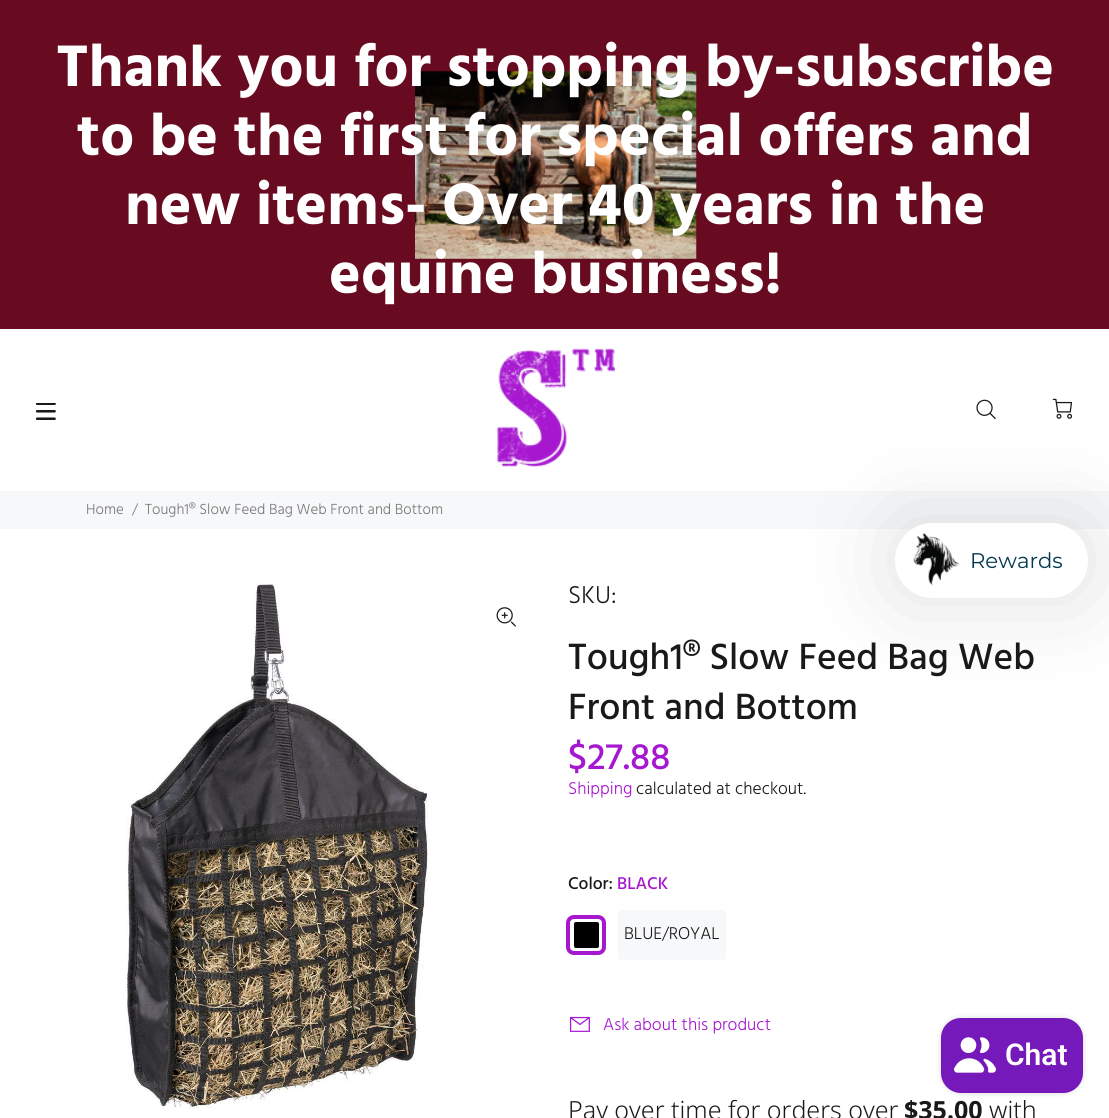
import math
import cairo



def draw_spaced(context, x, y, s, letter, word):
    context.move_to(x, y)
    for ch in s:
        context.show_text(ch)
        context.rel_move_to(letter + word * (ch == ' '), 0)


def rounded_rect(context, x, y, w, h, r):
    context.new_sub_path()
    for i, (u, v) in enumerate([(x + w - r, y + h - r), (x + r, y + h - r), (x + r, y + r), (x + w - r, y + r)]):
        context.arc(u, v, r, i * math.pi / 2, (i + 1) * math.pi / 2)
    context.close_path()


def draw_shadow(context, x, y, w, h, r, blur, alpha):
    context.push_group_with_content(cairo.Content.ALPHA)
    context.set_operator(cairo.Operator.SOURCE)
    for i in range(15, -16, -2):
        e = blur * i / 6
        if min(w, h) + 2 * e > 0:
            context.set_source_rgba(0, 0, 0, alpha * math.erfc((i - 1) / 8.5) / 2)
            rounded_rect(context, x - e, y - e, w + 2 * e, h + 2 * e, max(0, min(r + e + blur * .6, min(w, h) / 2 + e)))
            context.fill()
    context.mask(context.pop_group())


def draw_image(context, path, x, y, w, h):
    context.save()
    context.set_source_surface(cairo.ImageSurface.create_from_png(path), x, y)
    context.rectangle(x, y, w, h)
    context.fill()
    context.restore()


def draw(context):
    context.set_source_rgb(1, 1, 1)
    context.paint()
    context.set_source_rgb(104 / 255, 11 / 255, 32 / 255)
    context.rectangle(0, 0, 1109, 329)
    context.fill()
    draw_image(context, "images/1.png", 415, 71, 282, 188)
    draw_image(context, "images/2.png", 35, 403, 21, 17)
    draw_image(context, "images/3.png", 497, 348, 118, 119)
    draw_image(context, "images/4.png", 976, 399, 20, 21)
    draw_image(context, "images/5.png", 1052, 398, 21, 21)
    context.set_source_rgb(247 / 255, 248 / 255, 250 / 255)
    context.rectangle(0, 491, 1109, 38)
    context.fill()
    context.set_source_rgb(0, 0, 0)
    draw_shadow(context, 895, 523, 193, 75, 37.5, 50, 0.12)
    context.set_source_rgb(1, 1, 1)
    rounded_rect(context, 895, 523, 193, 75, 37.5)
    context.fill()
    draw_image(context, "images/6.png", 913, 533, 46, 53)
    draw_image(context, "images/7.png", 127, 583, 301, 526)
    draw_image(context, "images/8.png", 496, 607, 20, 20)
    context.set_source_rgb(0, 0, 0)
    rounded_rect(context, 571, 919, 31, 32, 5)
    context.fill_preserve()
    context.set_source_rgb(1, 1, 1)
    context.set_line_width(6)
    context.stroke()
    rounded_rect(context, 568, 917, 36, 36, 6)
    context.set_source_rgb(166 / 255, 23 / 255, 208 / 255)
    context.set_line_width(4)
    context.stroke()
    context.set_source_rgb(247 / 255, 248 / 255, 250 / 255)
    rounded_rect(context, 618, 910, 108, 50, 2.5)
    context.fill()
    draw_image(context, "images/9.png", 569, 1016, 21, 16)
    context.set_source_rgb(0, 0, 0)
    draw_shadow(context, 941, 1018, 142, 75, 20, 3, 0.15)
    context.set_source_rgb(117 / 255, 25 / 255, 186 / 255)
    rounded_rect(context, 941, 1018, 142, 75, 20)
    context.fill()
    draw_image(context, "images/10.png", 954, 1037, 42, 36)
    context.select_font_face("Hind", cairo.FontSlant.NORMAL, cairo.FontWeight.BOLD)
    context.set_font_size(60)
    context.set_source_rgb(1, 1, 1)
    draw_spaced(context, 56, 86, "Thank you for stopping by-subscribe", 0, 0.5)
    draw_spaced(context, 77, 155, "to be the first for special offers and", 0, 0.5)
    draw_spaced(context, 125, 224, "new items-", 0, 0.5)
    draw_spaced(context, 442, 224, "Over 40 years in the", 0, 0.5)
    draw_spaced(context, 329, 293, "equine business!", 0, 0.5)
    context.select_font_face("Hind Light")
    context.set_font_size(15)
    context.set_source_rgb(119 / 255, 119 / 255, 119 / 255)
    context.move_to(86, 514)
    context.show_text("Home")
    context.move_to(132, 514)
    context.show_text("/")
    context.move_to(145, 514)
    context.show_text("Tough1® Slow Feed Bag Web Front and Bottom")
    context.select_font_face("Montserrat")
    context.set_font_size(21.25)
    context.set_source_rgb(3 / 255, 57 / 255, 80 / 255)
    context.move_to(970, 568)
    context.show_text("Rewards")
    context.select_font_face("Hind Light")
    context.set_font_size(25)
    context.set_source_rgb(25 / 255, 25 / 255, 25 / 255)
    context.move_to(568, 603)
    context.show_text("SKU:")
    context.select_font_face("Hind Medium")
    context.set_font_size(37.5)
    context.move_to(568, 669)
    context.show_text("Tough1® Slow Feed Bag Web")
    context.move_to(568, 719)
    context.show_text("Front and Bottom")
    context.set_source_rgb(166 / 255, 23 / 255, 208 / 255)
    context.move_to(568, 769)
    context.show_text("$27.88")
    context.select_font_face("Hind Light")
    context.set_font_size(17.5)
    context.move_to(568, 794)
    context.show_text("Shipping")
    context.set_source_rgb(25 / 255, 25 / 255, 25 / 255)
    context.move_to(636, 794)
    context.show_text("calculated at checkout.")
    context.select_font_face("Hind Medium")
    context.move_to(568, 889)
    context.show_text("Color:")
    context.set_source_rgb(166 / 255, 23 / 255, 208 / 255)
    context.move_to(617, 889)
    context.show_text("BLACK")
    context.select_font_face("Hind Light")
    context.set_source_rgb(25 / 255, 25 / 255, 25 / 255)
    context.move_to(624, 939)
    context.show_text("BLUE/ROYAL")
    context.set_source_rgb(166 / 255, 23 / 255, 208 / 255)
    context.move_to(603, 1030)
    context.show_text("Ask about this product")
    context.select_font_face("Noto Sans Light")
    context.set_font_size(25)
    context.set_source_rgb(25 / 255, 25 / 255, 25 / 255)
    context.move_to(568, 1119)
    context.show_text("Pay over time for orders over")
    context.select_font_face("Noto Sans", cairo.FontSlant.NORMAL, cairo.FontWeight.BOLD)
    context.move_to(904, 1119)
    context.show_text("$35.00")
    context.select_font_face("Noto Sans Light")
    context.move_to(989, 1119)
    context.show_text("with")
    context.select_font_face("Roboto SemiBold")
    context.set_font_size(30)
    context.set_source_rgb(1, 1, 1)
    context.move_to(1005, 1065)
    context.show_text("Chat")


surface = cairo.ImageSurface(cairo.Format.RGB24, 1109, 1118)
context = cairo.Context(surface)
options = cairo.FontOptions()
options.set_hint_metrics(cairo.HintMetrics.OFF)
options.set_hint_style(cairo.HintStyle.NONE)
context.set_font_options(options)
context.set_miter_limit(4)
draw(context)
surface.write_to_png("out.png")
